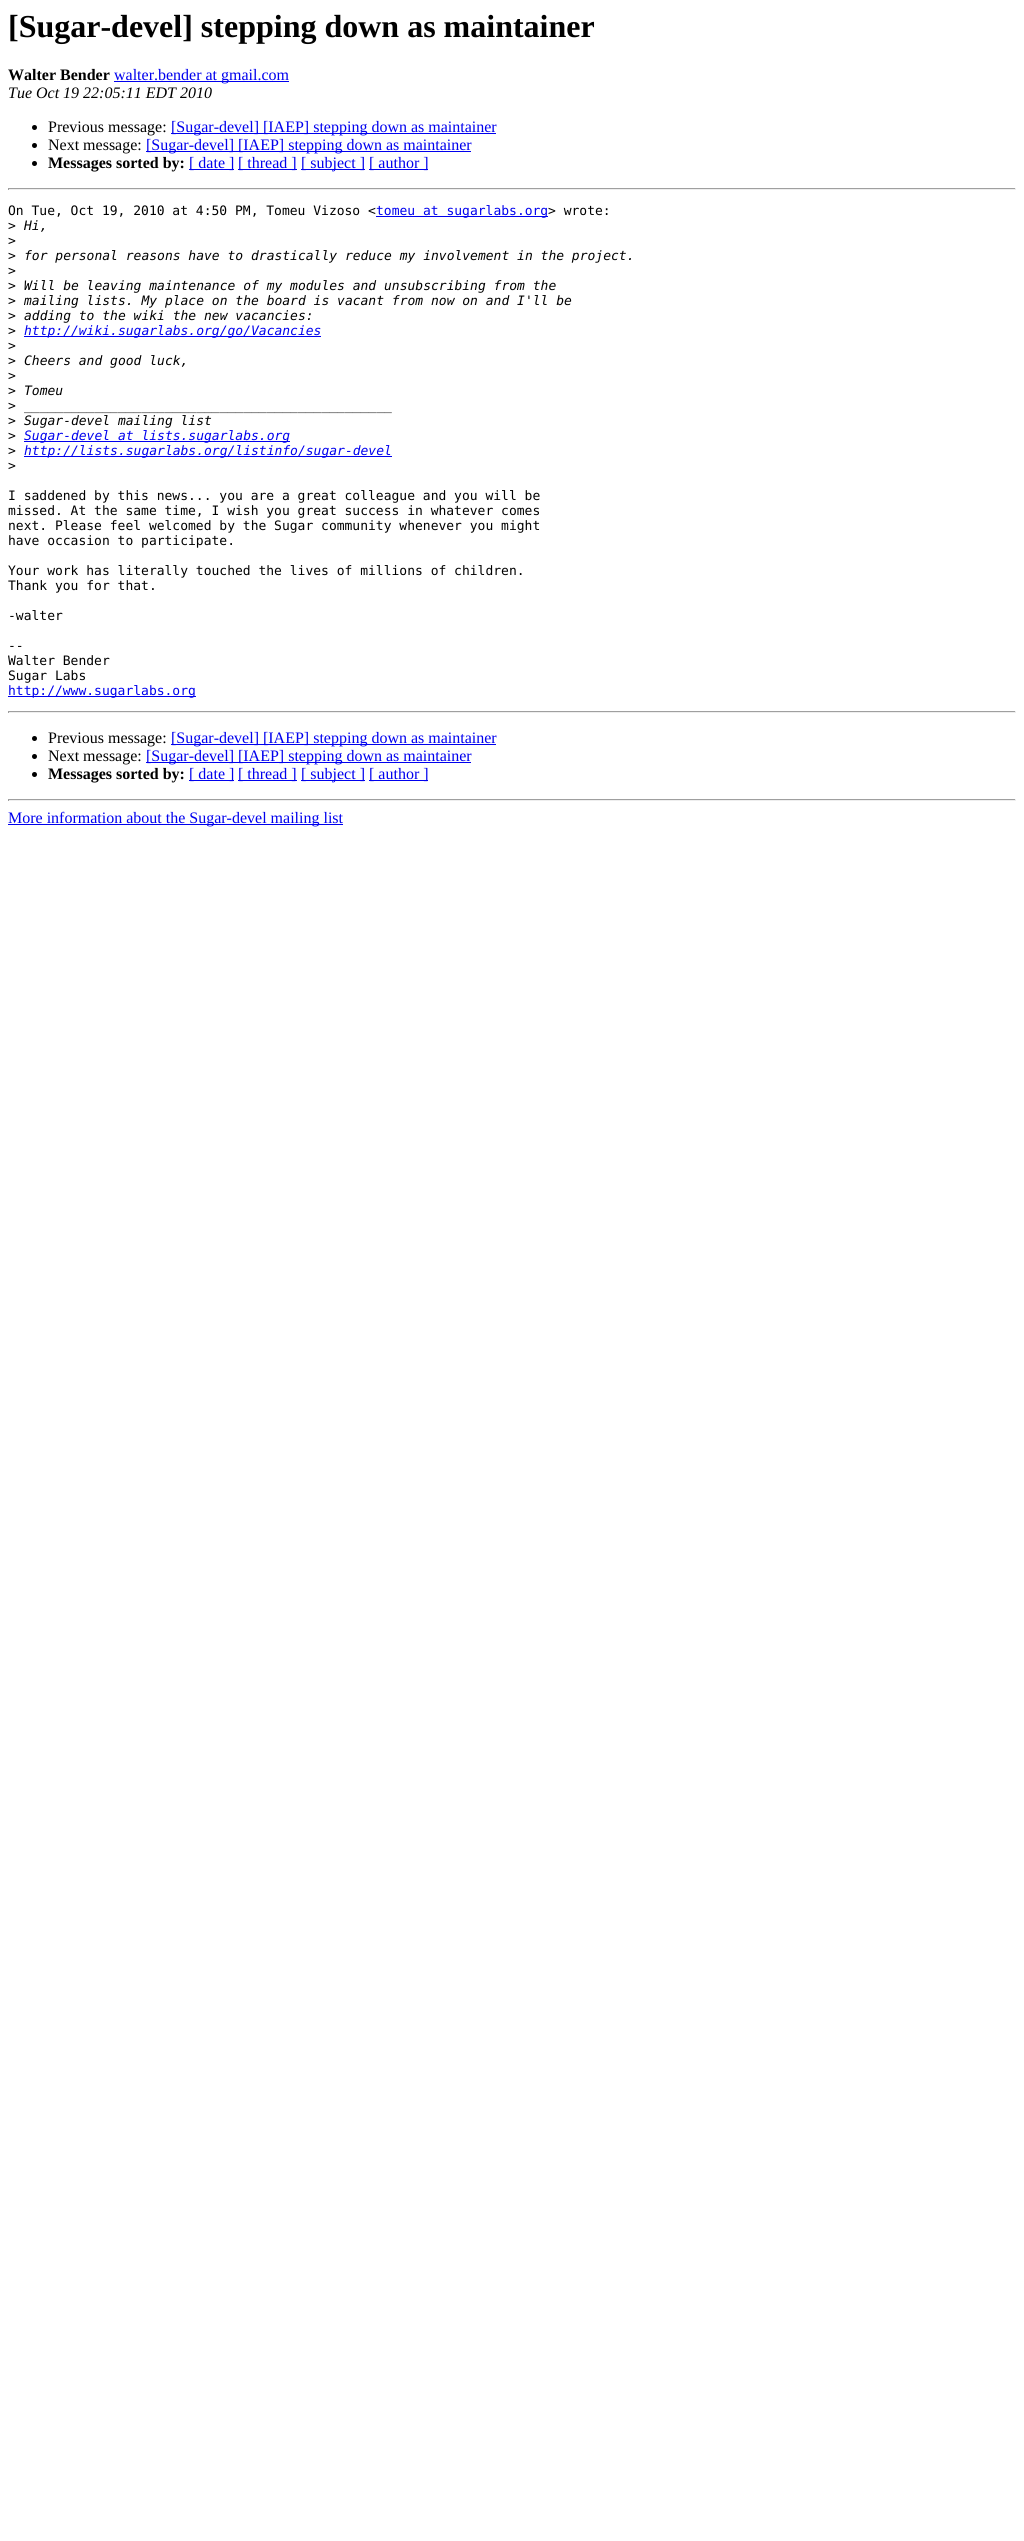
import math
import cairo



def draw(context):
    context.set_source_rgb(1, 1, 1)
    context.paint()
    context.set_source_rgb(0, 0, 238 / 255)
    context.rectangle(114, 81, 175, 1)
    context.fill()
    context.set_source_rgb(0, 0, 0)
    context.arc(34.5, 127.5, 2.5, 0, 2 * math.pi)
    context.fill()
    context.set_source_rgb(0, 0, 238 / 255)
    context.rectangle(171, 133, 325, 1)
    context.fill()
    context.set_source_rgb(0, 0, 0)
    context.arc(34.5, 145.5, 2.5, 0, 2 * math.pi)
    context.fill()
    context.set_source_rgb(0, 0, 238 / 255)
    context.rectangle(146, 151, 325, 1)
    context.fill()
    context.set_source_rgb(0, 0, 0)
    context.arc(34.5, 163.5, 2.5, 0, 2 * math.pi)
    context.fill()
    context.set_source_rgb(0, 0, 238 / 255)
    context.rectangle(189, 169, 45, 1)
    context.fill()
    context.rectangle(238, 169, 59, 1)
    context.fill()
    context.rectangle(301, 169, 64, 1)
    context.fill()
    context.rectangle(369, 169, 59, 1)
    context.fill()
    context.set_source_rgb(159 / 255, 159 / 255, 159 / 255)
    context.rectangle(8, 188, 1008, 1)
    context.fill()
    context.set_source_rgb(238 / 255, 238 / 255, 238 / 255)
    context.rectangle(1015, 188, 1, 2)
    context.fill()
    context.rectangle(8, 189, 1008, 1)
    context.fill()
    context.set_source_rgb(159 / 255, 159 / 255, 159 / 255)
    context.rectangle(8, 188, 1, 2)
    context.fill()
    context.set_source_rgb(0, 0, 238 / 255)
    context.rectangle(376, 216, 172, 1)
    context.fill()
    context.rectangle(24, 336, 297, 1)
    context.fill()
    context.rectangle(24, 441, 266, 1)
    context.fill()
    context.rectangle(24, 456, 368, 1)
    context.fill()
    context.rectangle(8, 696, 188, 1)
    context.fill()
    context.set_source_rgb(159 / 255, 159 / 255, 159 / 255)
    context.rectangle(8, 711, 1008, 1)
    context.fill()
    context.set_source_rgb(238 / 255, 238 / 255, 238 / 255)
    context.rectangle(1015, 711, 1, 2)
    context.fill()
    context.rectangle(8, 712, 1008, 1)
    context.fill()
    context.set_source_rgb(159 / 255, 159 / 255, 159 / 255)
    context.rectangle(8, 711, 1, 2)
    context.fill()
    context.set_source_rgb(0, 0, 0)
    context.arc(34.5, 738.5, 2.5, 0, 2 * math.pi)
    context.fill()
    context.set_source_rgb(0, 0, 238 / 255)
    context.rectangle(171, 744, 325, 1)
    context.fill()
    context.set_source_rgb(0, 0, 0)
    context.arc(34.5, 756.5, 2.5, 0, 2 * math.pi)
    context.fill()
    context.set_source_rgb(0, 0, 238 / 255)
    context.rectangle(146, 762, 325, 1)
    context.fill()
    context.set_source_rgb(0, 0, 0)
    context.arc(34.5, 774.5, 2.5, 0, 2 * math.pi)
    context.fill()
    context.set_source_rgb(0, 0, 238 / 255)
    context.rectangle(189, 780, 45, 1)
    context.fill()
    context.rectangle(238, 780, 59, 1)
    context.fill()
    context.rectangle(301, 780, 64, 1)
    context.fill()
    context.rectangle(369, 780, 59, 1)
    context.fill()
    context.set_source_rgb(159 / 255, 159 / 255, 159 / 255)
    context.rectangle(8, 799, 1008, 1)
    context.fill()
    context.set_source_rgb(238 / 255, 238 / 255, 238 / 255)
    context.rectangle(1015, 799, 1, 2)
    context.fill()
    context.rectangle(8, 800, 1008, 1)
    context.fill()
    context.set_source_rgb(159 / 255, 159 / 255, 159 / 255)
    context.rectangle(8, 799, 1, 2)
    context.fill()
    context.set_source_rgb(0, 0, 238 / 255)
    context.rectangle(8, 824, 335, 1)
    context.fill()
    context.select_font_face("Liberation Serif", cairo.FontSlant.NORMAL, cairo.FontWeight.BOLD)
    context.set_font_size(32)
    context.set_source_rgb(0, 0, 0)
    context.move_to(8, 37)
    context.show_text("[Sugar-devel] stepping down as maintainer")
    context.set_font_size(16)
    context.move_to(8, 80)
    context.show_text("Walter Bender")
    context.select_font_face("Liberation Serif")
    context.set_source_rgb(0, 0, 238 / 255)
    context.move_to(114, 80)
    context.show_text("walter.bender at gmail.com")
    context.select_font_face("Liberation Serif", cairo.FontSlant.ITALIC)
    context.set_source_rgb(0, 0, 0)
    context.move_to(8, 98)
    context.show_text("Tue Oct 19 22:05:11 EDT 2010")
    context.select_font_face("Liberation Serif")
    context.move_to(48, 132)
    context.show_text("Previous message:")
    context.set_source_rgb(0, 0, 238 / 255)
    context.move_to(171, 132)
    context.show_text("[Sugar-devel] [IAEP] stepping down as maintainer")
    context.set_source_rgb(0, 0, 0)
    context.move_to(48, 150)
    context.show_text("Next message:")
    context.set_source_rgb(0, 0, 238 / 255)
    context.move_to(146, 150)
    context.show_text("[Sugar-devel] [IAEP] stepping down as maintainer")
    context.select_font_face("Liberation Serif", cairo.FontSlant.NORMAL, cairo.FontWeight.BOLD)
    context.set_source_rgb(0, 0, 0)
    context.move_to(48, 168)
    context.show_text("Messages sorted by:")
    context.select_font_face("Liberation Serif")
    context.set_source_rgb(0, 0, 238 / 255)
    context.move_to(189, 168)
    context.show_text("[ date ]")
    context.move_to(238, 168)
    context.show_text("[ thread ]")
    context.move_to(301, 168)
    context.show_text("[ subject ]")
    context.move_to(369, 168)
    context.show_text("[ author ]")
    context.select_font_face("DejaVu Sans Mono")
    context.set_font_size(13)
    context.set_source_rgb(0, 0, 0)
    context.move_to(8, 215)
    context.show_text("On Tue, Oct 19, 2010 at 4:50 PM, Tomeu Vizoso <")
    context.set_source_rgb(0, 0, 238 / 255)
    context.move_to(376, 215)
    context.show_text("tomeu at sugarlabs.org")
    context.set_source_rgb(0, 0, 0)
    context.move_to(548, 215)
    context.show_text("> wrote:")
    context.move_to(8, 230)
    context.show_text(">")
    context.select_font_face("DejaVu Sans Mono", cairo.FontSlant.ITALIC)
    context.move_to(24, 230)
    context.show_text("Hi,")
    context.select_font_face("DejaVu Sans Mono")
    context.move_to(8, 245)
    context.show_text(">")
    context.move_to(8, 260)
    context.show_text(">")
    context.select_font_face("DejaVu Sans Mono", cairo.FontSlant.ITALIC)
    context.move_to(24, 260)
    context.show_text("for personal reasons have to drastically reduce my involvement in the project.")
    context.select_font_face("DejaVu Sans Mono")
    context.move_to(8, 275)
    context.show_text(">")
    context.move_to(8, 290)
    context.show_text(">")
    context.select_font_face("DejaVu Sans Mono", cairo.FontSlant.ITALIC)
    context.move_to(24, 290)
    context.show_text("Will be leaving maintenance of my modules and unsubscribing from the")
    context.select_font_face("DejaVu Sans Mono")
    context.move_to(8, 305)
    context.show_text(">")
    context.select_font_face("DejaVu Sans Mono", cairo.FontSlant.ITALIC)
    context.move_to(24, 305)
    context.show_text("mailing lists. My place on the board is vacant from now on and I'll be")
    context.select_font_face("DejaVu Sans Mono")
    context.move_to(8, 320)
    context.show_text(">")
    context.select_font_face("DejaVu Sans Mono", cairo.FontSlant.ITALIC)
    context.move_to(24, 320)
    context.show_text("adding to the wiki the new vacancies:")
    context.select_font_face("DejaVu Sans Mono")
    context.move_to(8, 335)
    context.show_text(">")
    context.select_font_face("DejaVu Sans Mono", cairo.FontSlant.ITALIC)
    context.set_source_rgb(0, 0, 238 / 255)
    context.move_to(24, 335)
    context.show_text("http://wiki.sugarlabs.org/go/Vacancies")
    context.select_font_face("DejaVu Sans Mono")
    context.set_source_rgb(0, 0, 0)
    context.move_to(8, 350)
    context.show_text(">")
    context.move_to(8, 365)
    context.show_text(">")
    context.select_font_face("DejaVu Sans Mono", cairo.FontSlant.ITALIC)
    context.move_to(24, 365)
    context.show_text("Cheers and good luck,")
    context.select_font_face("DejaVu Sans Mono")
    context.move_to(8, 380)
    context.show_text(">")
    context.move_to(8, 395)
    context.show_text(">")
    context.select_font_face("DejaVu Sans Mono", cairo.FontSlant.ITALIC)
    context.move_to(24, 395)
    context.show_text("Tomeu")
    context.select_font_face("DejaVu Sans Mono")
    context.move_to(8, 410)
    context.show_text(">")
    context.select_font_face("DejaVu Sans Mono", cairo.FontSlant.ITALIC)
    context.move_to(24, 410)
    context.show_text("_______________________________________________")
    context.select_font_face("DejaVu Sans Mono")
    context.move_to(8, 425)
    context.show_text(">")
    context.select_font_face("DejaVu Sans Mono", cairo.FontSlant.ITALIC)
    context.move_to(24, 425)
    context.show_text("Sugar-devel mailing list")
    context.select_font_face("DejaVu Sans Mono")
    context.move_to(8, 440)
    context.show_text(">")
    context.select_font_face("DejaVu Sans Mono", cairo.FontSlant.ITALIC)
    context.set_source_rgb(0, 0, 238 / 255)
    context.move_to(24, 440)
    context.show_text("Sugar-devel at lists.sugarlabs.org")
    context.select_font_face("DejaVu Sans Mono")
    context.set_source_rgb(0, 0, 0)
    context.move_to(8, 455)
    context.show_text(">")
    context.select_font_face("DejaVu Sans Mono", cairo.FontSlant.ITALIC)
    context.set_source_rgb(0, 0, 238 / 255)
    context.move_to(24, 455)
    context.show_text("http://lists.sugarlabs.org/listinfo/sugar-devel")
    context.select_font_face("DejaVu Sans Mono")
    context.set_source_rgb(0, 0, 0)
    context.move_to(8, 470)
    context.show_text(">")
    context.move_to(8, 500)
    context.show_text("I saddened by this news... you are a great colleague and you will be")
    context.move_to(8, 515)
    context.show_text("missed. At the same time, I wish you great success in whatever comes")
    context.move_to(8, 530)
    context.show_text("next. Please feel welcomed by the Sugar community whenever you might")
    context.move_to(8, 545)
    context.show_text("have occasion to participate.")
    context.move_to(8, 575)
    context.show_text("Your work has literally touched the lives of millions of children.")
    context.move_to(8, 590)
    context.show_text("Thank you for that.")
    context.move_to(8, 620)
    context.show_text("-walter")
    context.move_to(8, 650)
    context.show_text("--")
    context.move_to(8, 665)
    context.show_text("Walter Bender")
    context.move_to(8, 680)
    context.show_text("Sugar Labs")
    context.set_source_rgb(0, 0, 238 / 255)
    context.move_to(8, 695)
    context.show_text("http://www.sugarlabs.org")
    context.select_font_face("Liberation Serif")
    context.set_font_size(16)
    context.set_source_rgb(0, 0, 0)
    context.move_to(48, 743)
    context.show_text("Previous message:")
    context.set_source_rgb(0, 0, 238 / 255)
    context.move_to(171, 743)
    context.show_text("[Sugar-devel] [IAEP] stepping down as maintainer")
    context.set_source_rgb(0, 0, 0)
    context.move_to(48, 761)
    context.show_text("Next message:")
    context.set_source_rgb(0, 0, 238 / 255)
    context.move_to(146, 761)
    context.show_text("[Sugar-devel] [IAEP] stepping down as maintainer")
    context.select_font_face("Liberation Serif", cairo.FontSlant.NORMAL, cairo.FontWeight.BOLD)
    context.set_source_rgb(0, 0, 0)
    context.move_to(48, 779)
    context.show_text("Messages sorted by:")
    context.select_font_face("Liberation Serif")
    context.set_source_rgb(0, 0, 238 / 255)
    context.move_to(189, 779)
    context.show_text("[ date ]")
    context.move_to(238, 779)
    context.show_text("[ thread ]")
    context.move_to(301, 779)
    context.show_text("[ subject ]")
    context.move_to(369, 779)
    context.show_text("[ author ]")
    context.move_to(8, 823)
    context.show_text("More information about the Sugar-devel mailing list")


surface = cairo.ImageSurface(cairo.Format.RGB24, 1024, 2541)
context = cairo.Context(surface)
options = cairo.FontOptions()
options.set_hint_metrics(cairo.HintMetrics.OFF)
options.set_hint_style(cairo.HintStyle.NONE)
context.set_font_options(options)
context.set_miter_limit(4)
draw(context)
surface.write_to_png("out.png")
